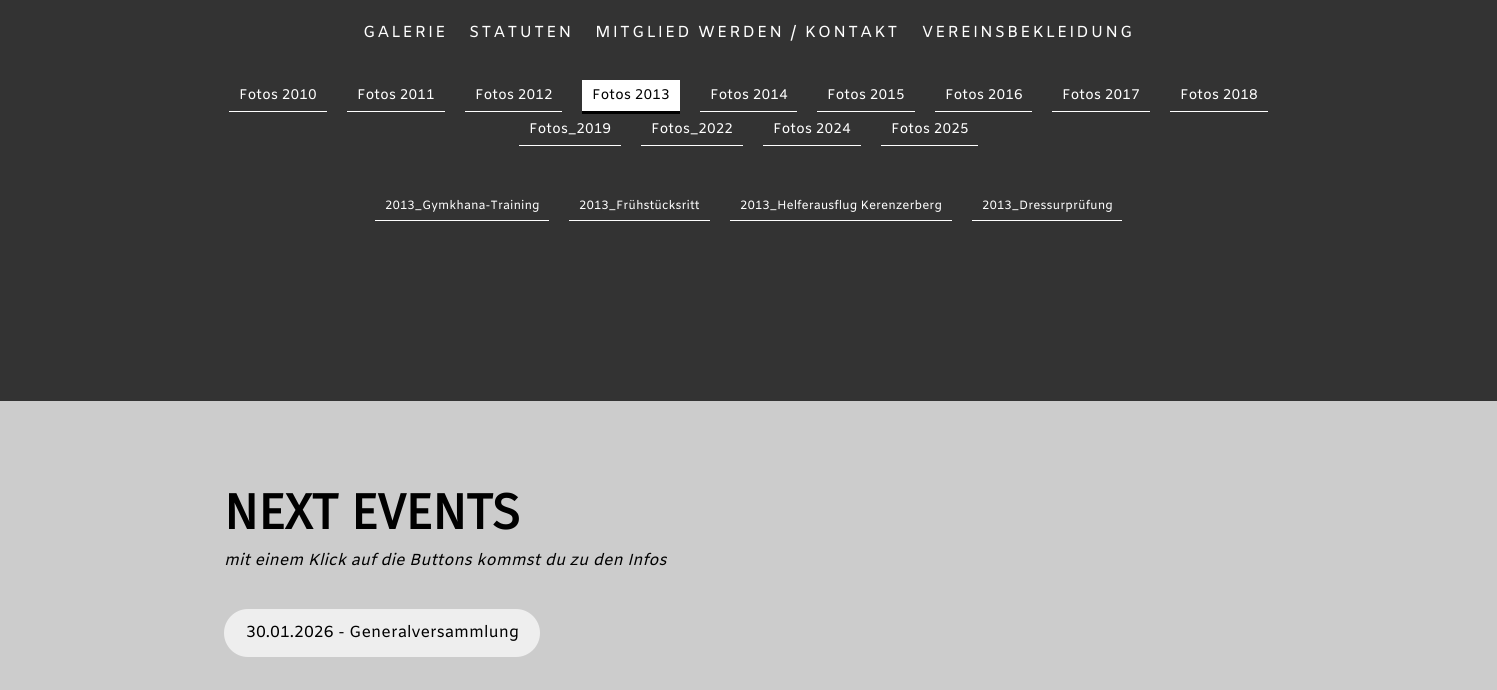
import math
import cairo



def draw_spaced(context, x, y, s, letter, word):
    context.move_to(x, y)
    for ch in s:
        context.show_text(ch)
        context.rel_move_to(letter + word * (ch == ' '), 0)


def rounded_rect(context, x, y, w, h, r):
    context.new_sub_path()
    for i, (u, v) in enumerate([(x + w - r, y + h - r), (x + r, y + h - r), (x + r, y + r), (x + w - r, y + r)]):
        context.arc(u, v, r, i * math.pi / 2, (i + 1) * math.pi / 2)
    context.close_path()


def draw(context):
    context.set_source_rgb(51 / 255, 51 / 255, 51 / 255)
    context.paint()
    context.set_source_rgb(1, 1, 1)
    context.rectangle(229, 111, 98, 1)
    context.fill()
    context.rectangle(347, 111, 98, 1)
    context.fill()
    context.rectangle(465, 111, 97, 1)
    context.fill()
    context.rectangle(582, 80, 98, 31)
    context.fill()
    context.set_source_rgb(0, 0, 0)
    context.rectangle(582, 111, 98, 3)
    context.fill()
    context.set_source_rgb(1, 1, 1)
    context.rectangle(700, 111, 97, 1)
    context.fill()
    context.rectangle(817, 111, 98, 1)
    context.fill()
    context.rectangle(935, 111, 97, 1)
    context.fill()
    context.rectangle(1052, 111, 98, 1)
    context.fill()
    context.rectangle(1170, 111, 98, 1)
    context.fill()
    context.rectangle(519, 145, 102, 1)
    context.fill()
    context.rectangle(641, 145, 102, 1)
    context.fill()
    context.rectangle(763, 145, 98, 1)
    context.fill()
    context.rectangle(881, 145, 97, 1)
    context.fill()
    context.rectangle(375, 220, 174, 1)
    context.fill()
    context.rectangle(569, 220, 141, 1)
    context.fill()
    context.rectangle(730, 220, 222, 1)
    context.fill()
    context.rectangle(972, 220, 150, 1)
    context.fill()
    context.set_source_rgb(204 / 255, 204 / 255, 204 / 255)
    context.rectangle(0, 401, 1497, 289)
    context.fill()
    context.set_source_rgb(238 / 255, 238 / 255, 238 / 255)
    rounded_rect(context, 225, 610, 314, 46, 23)
    context.fill_preserve()
    context.stroke()
    context.select_font_face("Amiko")
    context.set_font_size(16)
    context.set_source_rgb(1, 1, 1)
    draw_spaced(context, 363, 37, "GALERIE", 2, 0)
    draw_spaced(context, 469, 37, "STATUTEN", 2, 0)
    draw_spaced(context, 595, 37, "MITGLIED WERDEN / KONTAKT", 2, 0)
    draw_spaced(context, 922, 37, "VEREINSBEKLEIDUNG", 2, 0)
    context.set_font_size(14)
    context.move_to(239, 99)
    context.show_text("Fotos 2010")
    context.move_to(357, 99)
    context.show_text("Fotos 2011")
    context.move_to(475, 99)
    context.show_text("Fotos 2012")
    context.set_source_rgb(0, 0, 0)
    context.move_to(592, 99)
    context.show_text("Fotos 2013")
    context.set_source_rgb(1, 1, 1)
    context.move_to(710, 99)
    context.show_text("Fotos 2014")
    context.move_to(827, 99)
    context.show_text("Fotos 2015")
    context.move_to(945, 99)
    context.show_text("Fotos 2016")
    context.move_to(1062, 99)
    context.show_text("Fotos 2017")
    context.move_to(1180, 99)
    context.show_text("Fotos 2018")
    context.move_to(529, 133)
    context.show_text("Fotos_2019")
    context.move_to(651, 133)
    context.show_text("Fotos_2022")
    context.move_to(773, 133)
    context.show_text("Fotos 2024")
    context.move_to(891, 133)
    context.show_text("Fotos 2025")
    context.set_font_size(12)
    context.move_to(385, 209)
    context.show_text("2013_Gymkhana-Training")
    context.move_to(579, 209)
    context.show_text("2013_Frühstücksritt")
    context.move_to(740, 209)
    context.show_text("2013_Helferausflug Kerenzerberg")
    context.move_to(982, 209)
    context.show_text("2013_Dressurprüfung")
    context.select_font_face("Fira Sans", cairo.FontSlant.NORMAL, cairo.FontWeight.BOLD)
    context.set_font_size(50)
    context.set_source_rgb(0, 0, 0)
    context.move_to(224, 529)
    context.show_text("NEXT EVENTS")
    context.select_font_face("Amiko", cairo.FontSlant.ITALIC)
    context.set_font_size(16)
    context.move_to(224, 565)
    context.show_text("mit einem Klick auf die Buttons kommst du zu den Infos")
    context.select_font_face("Amiko")
    context.move_to(246, 637)
    context.show_text("30.01.2026 - Generalversammlung")


surface = cairo.ImageSurface(cairo.Format.RGB24, 1497, 690)
context = cairo.Context(surface)
options = cairo.FontOptions()
options.set_hint_metrics(cairo.HintMetrics.OFF)
options.set_hint_style(cairo.HintStyle.NONE)
context.set_font_options(options)
context.set_miter_limit(4)
draw(context)
surface.write_to_png("out.png")
